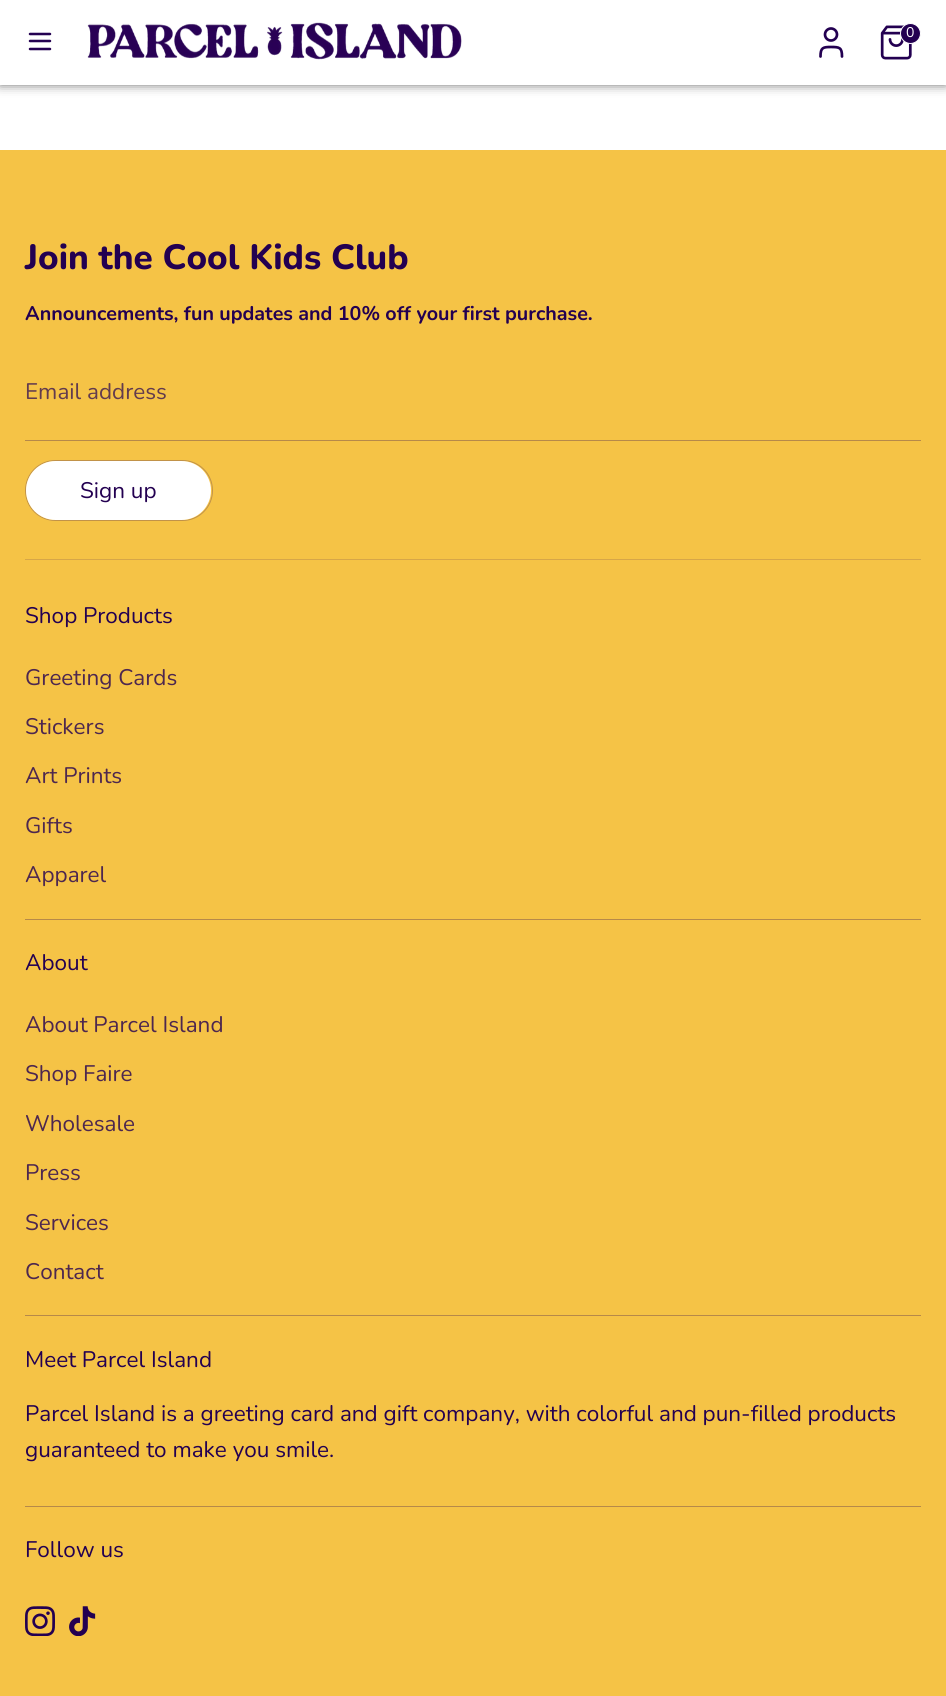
import math
import cairo



def rounded_rect(context, x, y, w, h, r):
    context.new_sub_path()
    for i, (u, v) in enumerate([(x + w - r, y + h - r), (x + r, y + h - r), (x + r, y + r), (x + w - r, y + r)]):
        context.arc(u, v, r, i * math.pi / 2, (i + 1) * math.pi / 2)
    context.close_path()


def draw_shadow(context, x, y, w, h, r, blur, alpha):
    context.push_group_with_content(cairo.Content.ALPHA)
    context.set_operator(cairo.Operator.SOURCE)
    for i in range(15, -16, -2):
        e = blur * i / 6
        if min(w, h) + 2 * e > 0:
            context.set_source_rgba(0, 0, 0, alpha * math.erfc((i - 1) / 8.5) / 2)
            rounded_rect(context, x - e, y - e, w + 2 * e, h + 2 * e, max(0, min(r + e + blur * .6, min(w, h) / 2 + e)))
            context.fill()
    context.mask(context.pop_group())


def draw_image(context, path, x, y, w, h):
    context.save()
    context.set_source_surface(cairo.ImageSurface.create_from_png(path), x, y)
    context.rectangle(x, y, w, h)
    context.fill()
    context.restore()


def draw(context):
    context.set_source_rgb(1, 1, 1)
    context.paint()
    context.set_source_rgb(0, 0, 0)
    draw_shadow(context, 0, -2, 946, 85, 0, 6, 0.75)
    context.set_source_rgb(1, 1, 1)
    context.rectangle(0, 0, 946, 85)
    context.fill()
    context.new_path()
    context.move_to(30, 41)
    context.line_to(50, 41)
    context.move_to(30, 34)
    context.line_to(50, 34)
    context.move_to(30, 49)
    context.line_to(50, 49)
    context.set_source_rgb(35 / 255, 0, 81 / 255)
    context.set_line_width(2.5)
    context.set_line_cap(cairo.LineCap.ROUND)
    context.set_line_join(cairo.LineJoin.ROUND)
    context.stroke()
    draw_image(context, "images/1.png", 87, 22, 375, 38)
    context.new_path()
    context.move_to(842, 56.5)
    context.curve_to(842, 47.5, 839.5, 47, 831, 47)
    context.curve_to(823, 47, 820.5, 47.5, 820.5, 56.5)
    context.set_line_width(2.7)
    context.stroke()
    context.arc(831, 34.5, 6, 0, 2 * math.pi)
    context.set_line_cap(cairo.LineCap.BUTT)
    context.set_line_join(cairo.LineJoin.MITER)
    context.stroke()
    draw_image(context, "images/2.png", 880, 25, 32, 35)
    context.arc(910.5, 33.5, 10, 0, 2 * math.pi)
    context.fill_preserve()
    context.set_source_rgb(1, 1, 1)
    context.set_line_width(1)
    context.stroke()
    context.set_source_rgb(245 / 255, 195 / 255, 70 / 255)
    context.rectangle(0, 150, 946, 1546)
    context.fill()
    context.set_source_rgb(182 / 255, 137 / 255, 73 / 255)
    context.rectangle(25, 440, 896, 1)
    context.fill()
    rounded_rect(context, 25.5, 460.5, 187, 60, 30)
    context.set_source_rgb(193 / 255, 146 / 255, 73 / 255)
    context.stroke()
    context.set_source_rgb(1, 1, 1)
    rounded_rect(context, 26, 461, 185, 59, 29.5)
    context.fill()
    context.set_source_rgb(214 / 255, 166 / 255, 72 / 255)
    context.rectangle(25, 559, 896, 1)
    context.fill()
    context.set_source_rgb(182 / 255, 137 / 255, 73 / 255)
    context.rectangle(25, 919, 896, 1)
    context.fill()
    context.rectangle(25, 1315, 896, 1)
    context.fill()
    context.rectangle(25, 1506, 896, 1)
    context.fill()
    draw_image(context, "images/3.png", 25, 1606, 30, 30)
    draw_image(context, "images/4.png", 69, 1606, 27, 30)
    context.select_font_face("Nunito")
    context.set_font_size(14)
    context.set_source_rgb(1, 1, 1)
    context.move_to(906, 37)
    context.show_text("0")
    context.select_font_face("Nunito ExtraBold")
    context.set_font_size(35)
    context.set_source_rgb(35 / 255, 0, 81 / 255)
    context.move_to(25, 269)
    context.show_text("Join the Cool Kids Club")
    context.select_font_face("Nunito", cairo.FontSlant.NORMAL, cairo.FontWeight.BOLD)
    context.set_font_size(19.7)
    context.move_to(25, 320)
    context.show_text("Announcements, fun updates and 10% off your first purchase.")
    context.select_font_face("Nunito")
    context.set_font_size(22.5)
    context.set_source_rgb(98 / 255, 59 / 255, 78 / 255)
    context.move_to(25, 399)
    context.show_text("Email address")
    context.set_source_rgb(35 / 255, 0, 81 / 255)
    context.move_to(80, 498)
    context.show_text("Sign up")
    context.move_to(25, 623)
    context.show_text("Shop Products")
    context.set_source_rgb(77 / 255, 39 / 255, 79 / 255)
    context.move_to(25, 685)
    context.show_text("Greeting Cards")
    context.move_to(25, 734)
    context.show_text("Stickers")
    context.move_to(25, 783)
    context.show_text("Art Prints")
    context.move_to(25, 833)
    context.show_text("Gifts")
    context.move_to(25, 882)
    context.show_text("Apparel")
    context.set_source_rgb(35 / 255, 0, 81 / 255)
    context.move_to(25, 970)
    context.show_text("About")
    context.set_source_rgb(77 / 255, 39 / 255, 79 / 255)
    context.move_to(25, 1032)
    context.show_text("About Parcel Island")
    context.move_to(25, 1081)
    context.show_text("Shop Faire")
    context.move_to(25, 1131)
    context.show_text("Wholesale")
    context.move_to(25, 1180)
    context.show_text("Press")
    context.move_to(25, 1230)
    context.show_text("Services")
    context.move_to(25, 1279)
    context.show_text("Contact")
    context.set_source_rgb(35 / 255, 0, 81 / 255)
    context.move_to(25, 1367)
    context.show_text("Meet Parcel Island")
    context.move_to(25, 1421)
    context.show_text("Parcel Island is a greeting card and gift company, with colorful and pun-filled products")
    context.move_to(25, 1457)
    context.show_text("guaranteed to make you smile.")
    context.move_to(25, 1557)
    context.show_text("Follow us")


surface = cairo.ImageSurface(cairo.Format.RGB24, 946, 1696)
context = cairo.Context(surface)
options = cairo.FontOptions()
options.set_hint_metrics(cairo.HintMetrics.OFF)
options.set_hint_style(cairo.HintStyle.NONE)
context.set_font_options(options)
context.set_miter_limit(4)
draw(context)
surface.write_to_png("out.png")
